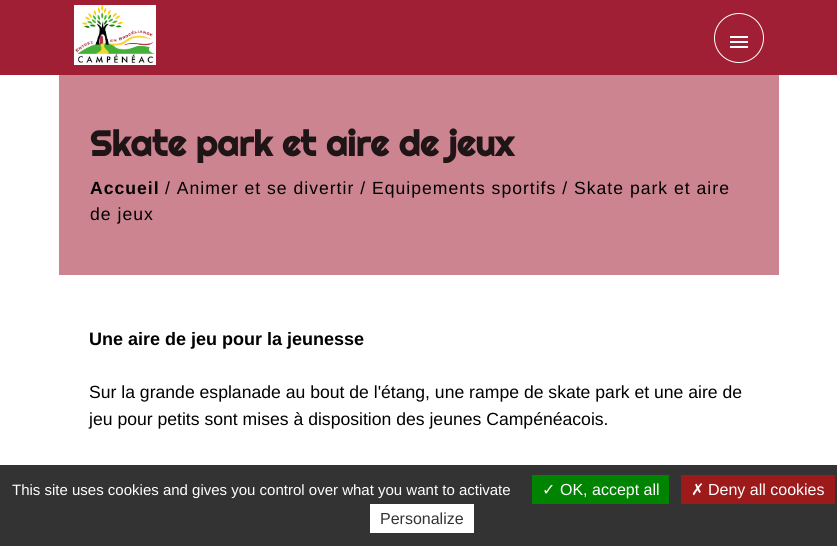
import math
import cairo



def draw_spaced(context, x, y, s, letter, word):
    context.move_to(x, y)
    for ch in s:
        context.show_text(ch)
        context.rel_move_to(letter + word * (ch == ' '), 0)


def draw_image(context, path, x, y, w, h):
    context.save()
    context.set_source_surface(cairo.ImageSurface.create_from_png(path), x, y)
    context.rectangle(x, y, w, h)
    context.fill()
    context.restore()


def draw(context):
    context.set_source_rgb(1, 1, 1)
    context.paint()
    context.set_source_rgb(161 / 255, 31 / 255, 52 / 255)
    context.rectangle(0, 0, 837, 75)
    context.fill()
    draw_image(context, "images/1.png", 74, 5, 82, 60)
    context.arc(739, 38, 24.5, 0, 2 * math.pi)
    context.set_source_rgb(1, 1, 1)
    context.set_line_width(1)
    context.stroke()
    draw_image(context, "images/2.png", 730, 36, 18, 12)
    context.set_source_rgb(204 / 255, 132 / 255, 144 / 255)
    context.rectangle(59, 75, 720, 200)
    context.fill()
    context.set_source_rgb(51 / 255, 51 / 255, 51 / 255)
    context.rectangle(0, 465, 837, 81)
    context.fill()
    context.set_source_rgb(0, 131 / 255, 0)
    context.rectangle(532, 475, 137, 29)
    context.fill()
    context.set_source_rgb(156 / 255, 26 / 255, 26 / 255)
    context.rectangle(681, 475, 154, 29)
    context.fill()
    context.set_source_rgb(1, 1, 1)
    context.rectangle(370, 504, 104, 29)
    context.fill()
    context.select_font_face("Righteous", cairo.FontSlant.NORMAL, cairo.FontWeight.BOLD)
    context.set_font_size(35.25)
    context.set_source_rgb(31 / 255, 20 / 255, 22 / 255)
    context.move_to(90, 156)
    context.show_text("Skate park et aire de jeux")
    context.select_font_face("Liberation Sans", cairo.FontSlant.NORMAL, cairo.FontWeight.BOLD)
    context.set_font_size(17.6)
    context.set_source_rgb(0, 0, 0)
    draw_spaced(context, 90, 194, "Accueil", 1, 0)
    context.select_font_face("Liberation Sans")
    draw_spaced(context, 165, 194, "/ Animer et se divertir / Equipements sportifs / Skate park et aire", 1, 0)
    draw_spaced(context, 90, 220, "de jeux", 1, 0)
    context.select_font_face("Liberation Sans", cairo.FontSlant.NORMAL, cairo.FontWeight.BOLD)
    context.set_font_size(18)
    context.move_to(89, 345)
    context.show_text("Une aire de jeu pour la jeunesse")
    context.select_font_face("Liberation Sans")
    context.set_font_size(17.6)
    context.move_to(89, 398)
    context.show_text("Sur la grande esplanade au bout de l'étang, une rampe de skate park et une aire de")
    context.move_to(89, 425)
    context.show_text("jeu pour petits sont mises à disposition des jeunes Campénéacois.")
    context.set_font_size(15)
    context.set_source_rgb(1, 1, 1)
    context.move_to(12, 495)
    context.show_text("This site uses cookies and gives you control over what you want to activate")
    context.select_font_face("DejaVu Sans")
    context.set_font_size(16)
    context.move_to(542, 495)
    context.show_text("✓")
    context.select_font_face("Liberation Sans")
    context.move_to(560, 495)
    context.show_text("OK, accept all")
    context.select_font_face("DejaVu Sans")
    context.move_to(691, 495)
    context.show_text("✗")
    context.select_font_face("Liberation Sans")
    context.move_to(708, 495)
    context.show_text("Deny all cookies")
    context.set_source_rgb(51 / 255, 51 / 255, 51 / 255)
    context.move_to(380, 524)
    context.show_text("Personalize")


surface = cairo.ImageSurface(cairo.Format.RGB24, 837, 546)
context = cairo.Context(surface)
options = cairo.FontOptions()
options.set_hint_metrics(cairo.HintMetrics.OFF)
options.set_hint_style(cairo.HintStyle.NONE)
context.set_font_options(options)
context.set_miter_limit(4)
draw(context)
surface.write_to_png("out.png")
